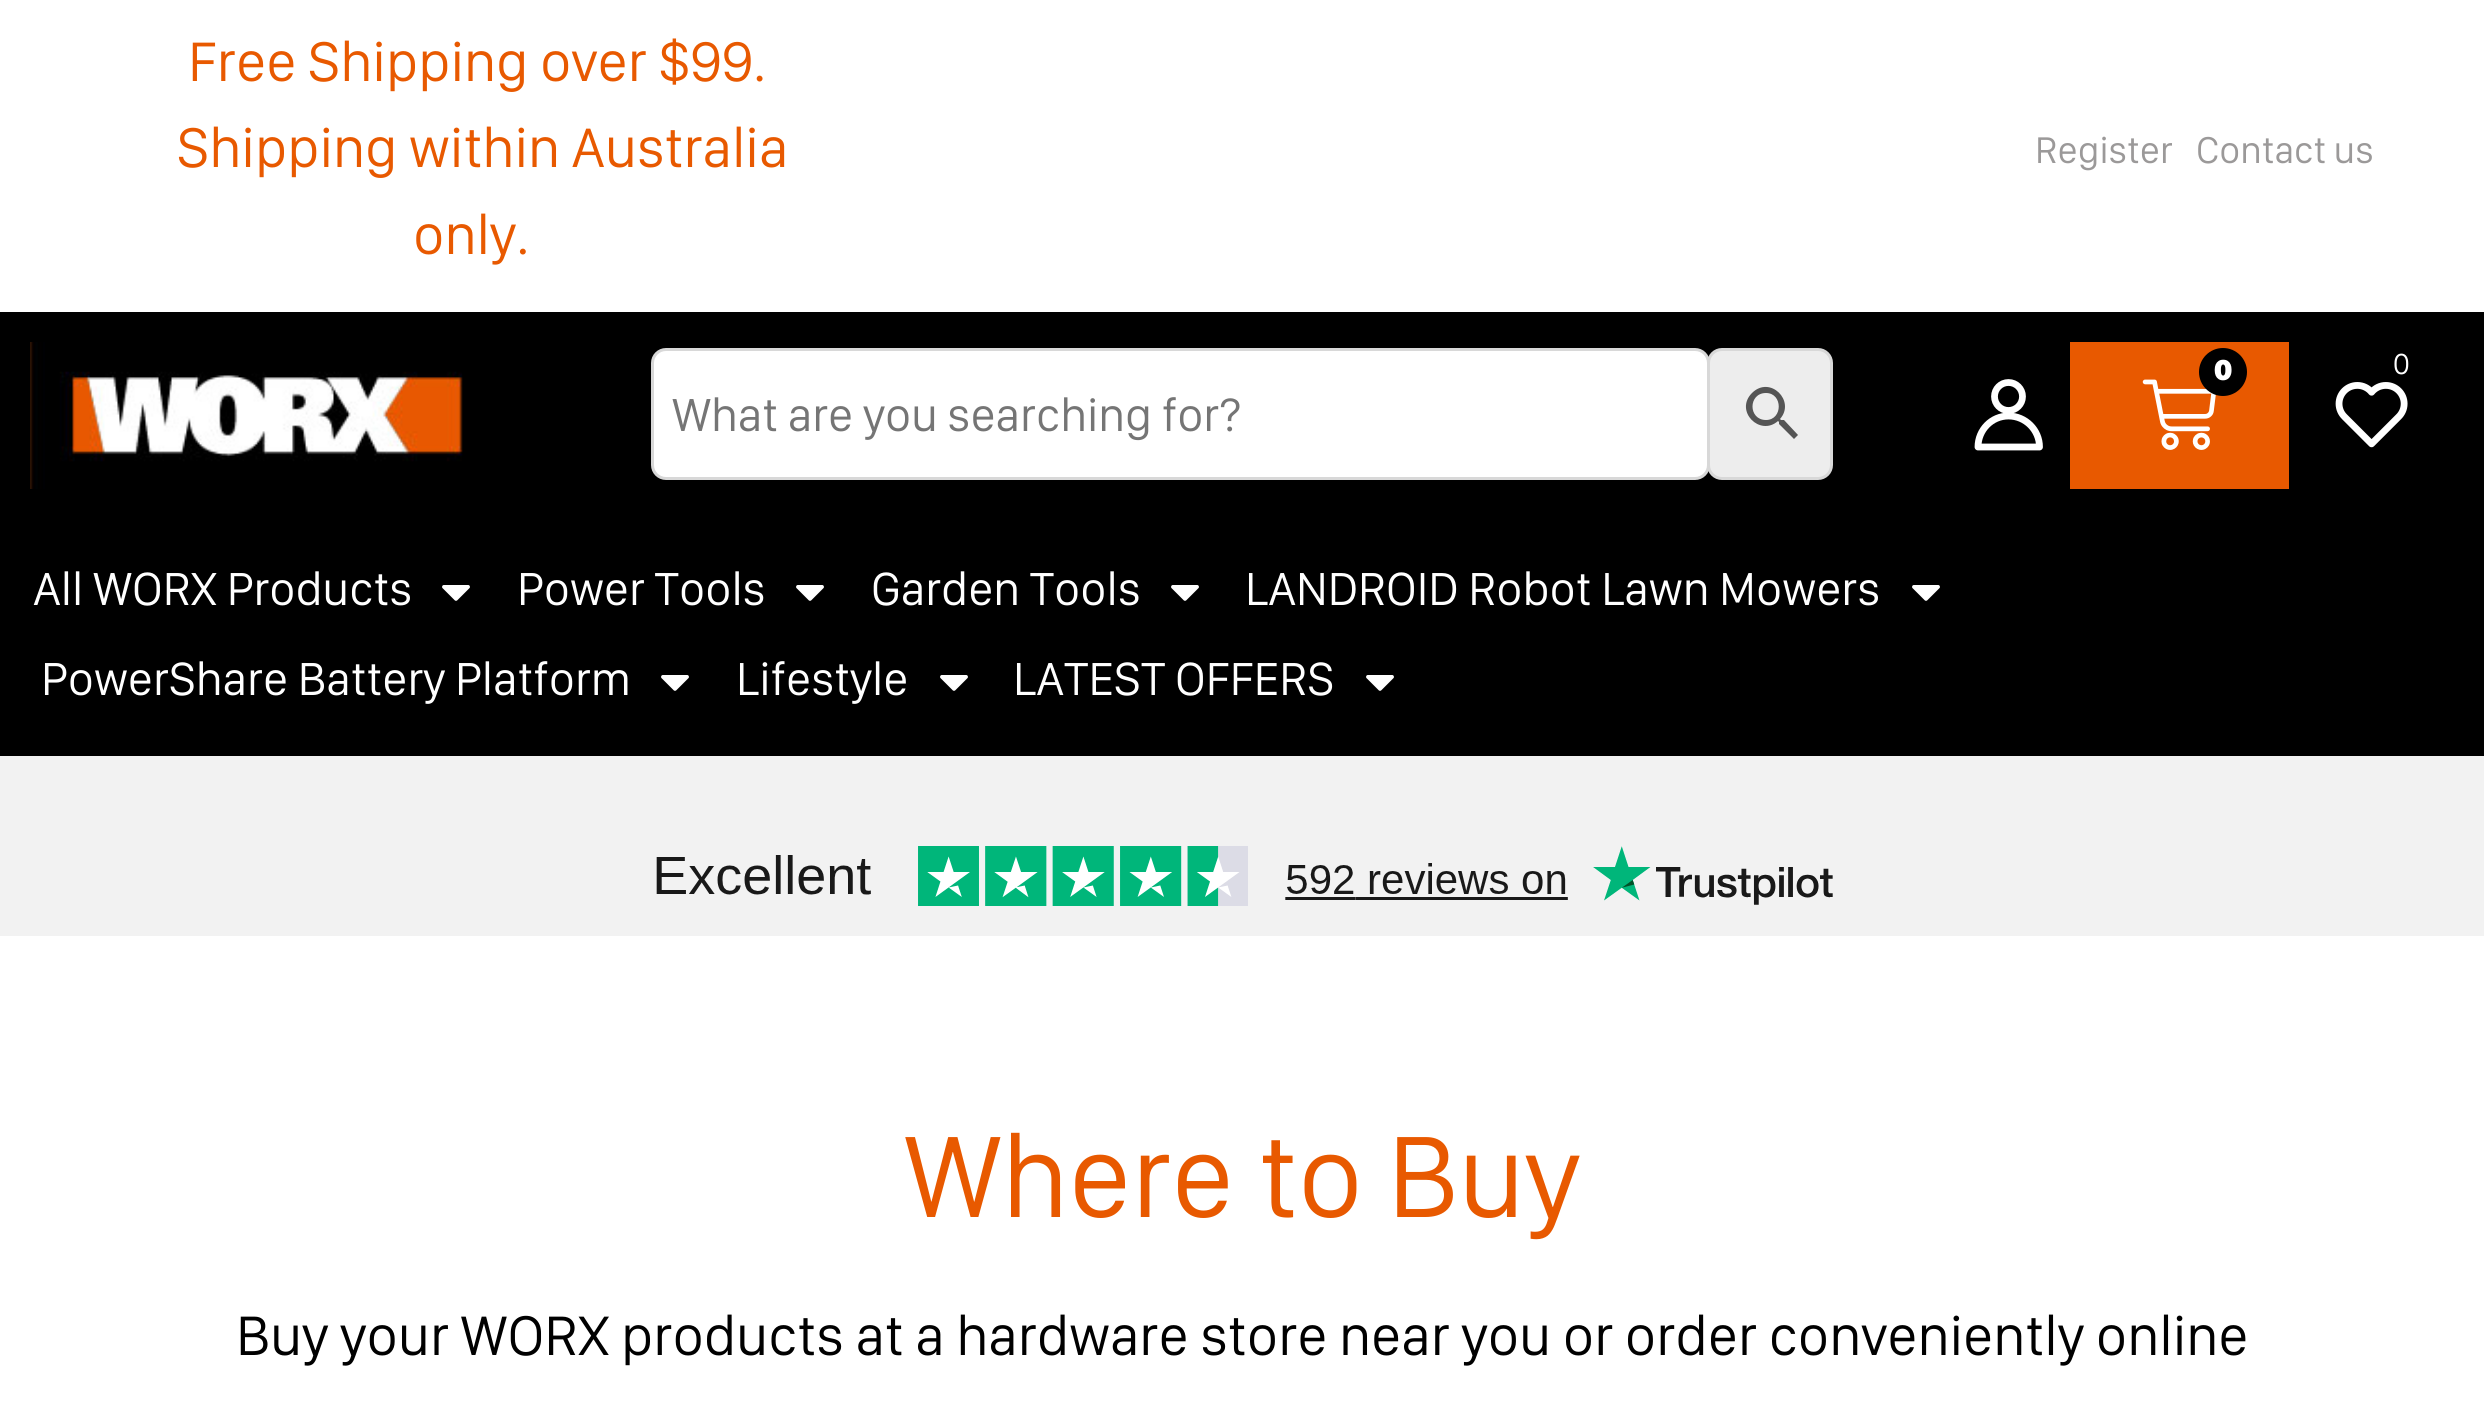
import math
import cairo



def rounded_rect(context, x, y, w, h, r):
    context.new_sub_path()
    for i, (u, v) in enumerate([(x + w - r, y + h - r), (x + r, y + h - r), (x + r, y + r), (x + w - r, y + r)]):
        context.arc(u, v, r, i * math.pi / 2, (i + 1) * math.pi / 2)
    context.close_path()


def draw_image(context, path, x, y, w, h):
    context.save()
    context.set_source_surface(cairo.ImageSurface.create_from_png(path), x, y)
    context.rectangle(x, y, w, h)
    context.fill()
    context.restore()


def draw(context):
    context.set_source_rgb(1, 1, 1)
    context.paint()
    context.set_source_rgb(0, 0, 0)
    context.rectangle(0, 312, 2484, 444)
    context.fill()
    draw_image(context, "images/1.png", 30, 342, 433, 147)
    context.set_source_rgb(232 / 255, 89 / 255, 0)
    context.rectangle(2070, 342, 219, 147)
    context.fill()
    draw_image(context, "images/2.png", 2142, 379, 74, 71)
    context.set_source_rgb(0, 0, 0)
    context.arc(2223, 372, 24, 0, 2 * math.pi)
    context.fill()
    draw_image(context, "images/3.png", 2335, 382, 73, 66)
    context.arc(2008.5, 396.5, 14, 0, 2 * math.pi)
    context.set_source_rgb(1, 1, 1)
    context.set_line_width(6.8)
    context.stroke()
    context.new_path()
    context.move_to(1978, 447)
    context.curve_to(1978, 430, 1991.5, 416, 2008.5, 416)
    context.curve_to(2025.5, 416, 2039.5, 430, 2039.5, 447)
    context.close_path()
    context.set_line_cap(cairo.LineCap.ROUND)
    context.set_line_join(cairo.LineJoin.ROUND)
    context.stroke()
    context.set_source_rgb(237 / 255, 237 / 255, 237 / 255)
    rounded_rect(context, 1708.5, 349.5, 123, 129, 13.5)
    context.fill_preserve()
    context.set_source_rgb(216 / 255, 216 / 255, 216 / 255)
    context.set_line_width(3)
    context.set_line_cap(cairo.LineCap.BUTT)
    context.set_line_join(cairo.LineJoin.MITER)
    context.stroke()
    context.set_source_rgb(1, 1, 1)
    rounded_rect(context, 652.5, 349.5, 1056, 129, 13.5)
    context.fill_preserve()
    context.set_source_rgb(216 / 255, 216 / 255, 216 / 255)
    context.stroke()
    context.set_source_rgb(85 / 255, 85 / 255, 85 / 255)
    context.new_path()
    context.move_to(1784, 420)
    context.line_to(1781, 420)
    context.line_to(1780, 419)
    context.curve_to(1796, 401, 1770, 375, 1752, 393)
    context.curve_to(1734, 411, 1760, 437, 1778, 421)
    context.line_to(1779, 422)
    context.line_to(1779, 424)
    context.line_to(1794, 439)
    context.line_to(1798, 435)
    context.close_path()
    context.move_to(1766, 420)
    context.curve_to(1748, 420, 1748, 393, 1766, 393)
    context.curve_to(1783, 393, 1783, 420, 1766, 420)
    context.close_path()
    context.fill()
    draw_image(context, "images/4.png", 442, 585, 28, 16)
    draw_image(context, "images/4.png", 796, 585, 28, 16)
    draw_image(context, "images/4.png", 1171, 585, 28, 16)
    draw_image(context, "images/4.png", 1912, 585, 28, 16)
    draw_image(context, "images/4.png", 661, 675, 28, 16)
    draw_image(context, "images/4.png", 940, 675, 28, 16)
    draw_image(context, "images/4.png", 1366, 675, 28, 16)
    context.set_source_rgb(242 / 255, 242 / 255, 242 / 255)
    context.rectangle(0, 756, 2484, 180)
    context.fill()
    draw_image(context, "images/5.png", 656, 846, 1177, 60)
    context.select_font_face("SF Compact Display")
    context.set_font_size(57.6)
    context.set_source_rgb(232 / 255, 89 / 255, 0)
    context.move_to(188, 81)
    context.show_text("Free Shipping over $99.")
    context.move_to(177, 167)
    context.show_text("Shipping within Australia")
    context.move_to(413, 254)
    context.show_text("only.")
    context.set_font_size(38.5)
    context.set_source_rgb(155 / 255, 153 / 255, 153 / 255)
    context.move_to(2035, 163)
    context.show_text("Register")
    context.move_to(2196, 163)
    context.show_text("Contact us")
    context.select_font_face("SF Compact Display Black")
    context.set_font_size(30)
    context.set_source_rgb(1, 1, 1)
    context.move_to(2214, 380)
    context.show_text("0")
    context.select_font_face("SF Compact Display")
    context.move_to(2393, 374)
    context.show_text("0")
    context.set_font_size(48)
    context.set_source_rgb(117 / 255, 117 / 255, 117 / 255)
    context.move_to(672, 431)
    context.show_text("What are you searching for?")
    context.set_source_rgb(1, 1, 1)
    context.move_to(33, 605)
    context.show_text("All WORX Products")
    context.move_to(517, 605)
    context.show_text("Power Tools")
    context.move_to(871, 605)
    context.show_text("Garden Tools")
    context.move_to(1245, 605)
    context.show_text("LANDROID Robot Lawn Mowers")
    context.move_to(41, 695)
    context.show_text("PowerShare Battery Platform")
    context.move_to(736, 695)
    context.show_text("Lifestyle")
    context.move_to(1013, 695)
    context.show_text("LATEST OFFERS")
    context.set_font_size(120)
    context.set_source_rgb(232 / 255, 89 / 255, 0)
    context.move_to(904, 1217)
    context.show_text("Where to Buy")
    context.set_font_size(57.6)
    context.set_source_rgb(0, 0, 0)
    context.move_to(236, 1355)
    context.show_text("Buy your WORX products at a hardware store near you or order conveniently online")


surface = cairo.ImageSurface(cairo.Format.RGB24, 2484, 1408)
context = cairo.Context(surface)
options = cairo.FontOptions()
options.set_hint_metrics(cairo.HintMetrics.OFF)
options.set_hint_style(cairo.HintStyle.NONE)
context.set_font_options(options)
context.set_miter_limit(4)
draw(context)
surface.write_to_png("out.png")
